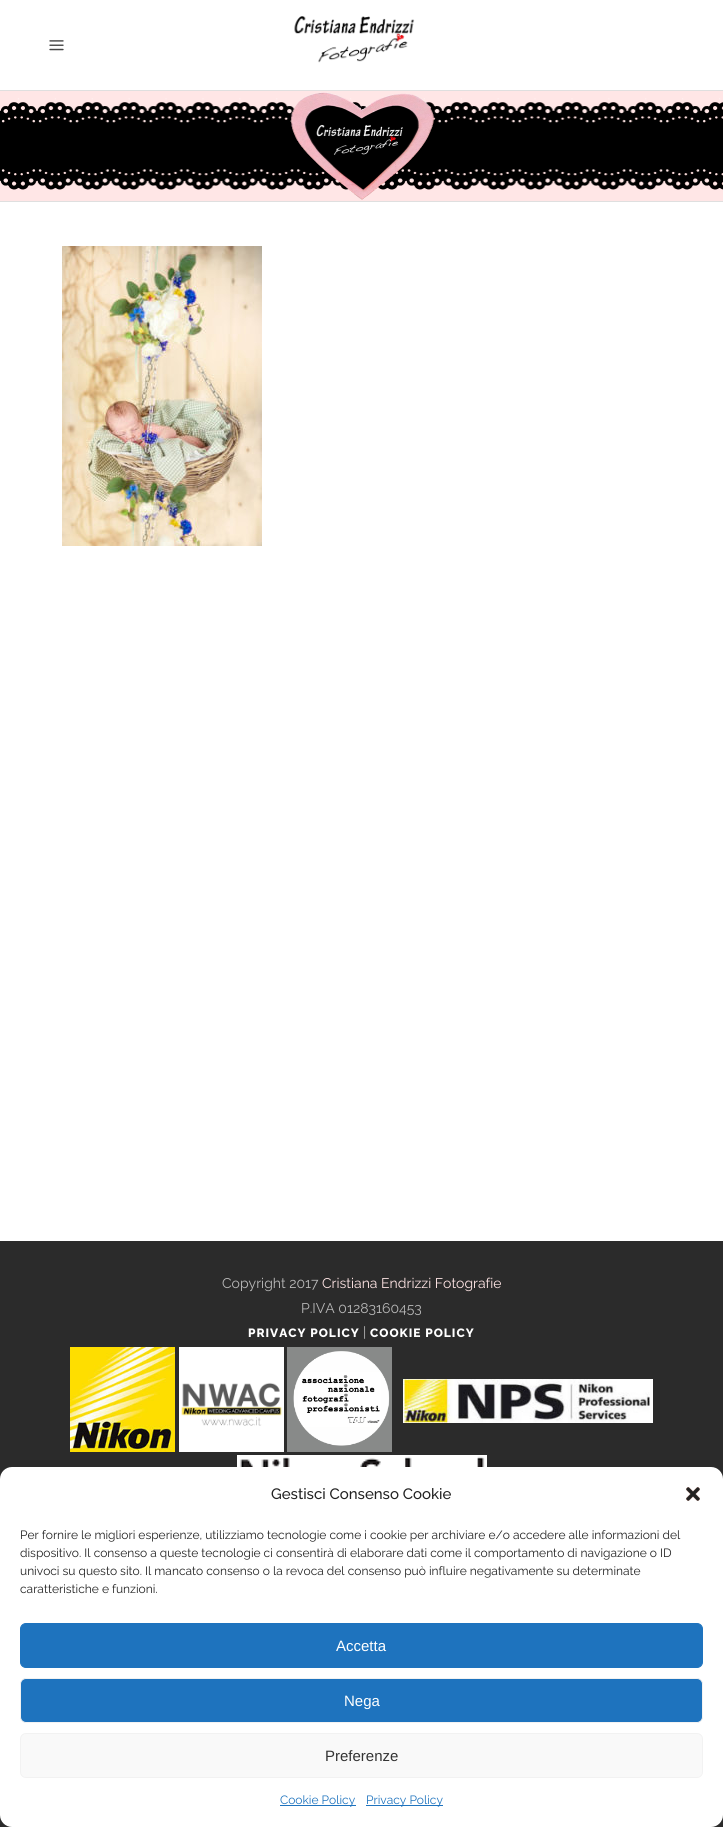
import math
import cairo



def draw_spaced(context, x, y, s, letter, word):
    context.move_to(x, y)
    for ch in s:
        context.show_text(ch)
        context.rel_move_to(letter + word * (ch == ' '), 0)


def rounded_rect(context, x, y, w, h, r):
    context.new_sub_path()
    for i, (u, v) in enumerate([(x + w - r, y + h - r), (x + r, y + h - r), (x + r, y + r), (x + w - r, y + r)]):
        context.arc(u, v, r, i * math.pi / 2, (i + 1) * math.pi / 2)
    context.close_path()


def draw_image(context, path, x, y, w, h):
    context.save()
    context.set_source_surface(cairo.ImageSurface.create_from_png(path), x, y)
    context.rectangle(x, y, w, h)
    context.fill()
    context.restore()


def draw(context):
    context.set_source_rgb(1, 1, 1)
    context.paint()
    context.set_source_rgb(223 / 255, 223 / 255, 223 / 255)
    context.rectangle(0, 90, 723, 1)
    context.fill()
    draw_image(context, "images/1.png", 49, 40, 15, 11)
    draw_image(context, "images/2.png", 294, 16, 121, 47)
    context.rectangle(0, 201, 723, 1)
    context.fill()
    draw_image(context, "images/3.png", 0, 91, 723, 110)
    draw_image(context, "images/4.png", 62, 246, 200, 300)
    context.set_source_rgb(43 / 255, 43 / 255, 43 / 255)
    context.rectangle(0, 1241, 723, 586)
    context.fill()
    draw_image(context, "images/5.png", 70, 1347, 105, 105)
    draw_image(context, "images/6.png", 179, 1347, 105, 105)
    draw_image(context, "images/7.png", 287, 1347, 105, 105)
    draw_image(context, "images/8.png", 403, 1379, 250, 44)
    draw_image(context, "images/9.png", 237, 1455, 250, 12)
    context.set_source_rgb(1, 1, 1)
    rounded_rect(context, 0, 1467, 723, 360, 12)
    context.fill()
    draw_image(context, "images/10.png", 686, 1487, 14, 14)
    context.set_source_rgb(30 / 255, 115 / 255, 190 / 255)
    rounded_rect(context, 20.5, 1623.5, 682, 44, 5.5)
    context.fill_preserve()
    context.set_line_width(1)
    context.stroke()
    rounded_rect(context, 20.5, 1678.5, 682, 44, 5.5)
    context.fill_preserve()
    context.set_source_rgb(242 / 255, 242 / 255, 242 / 255)
    context.stroke()
    context.set_source_rgb(249 / 255, 249 / 255, 249 / 255)
    rounded_rect(context, 20.5, 1733.5, 682, 44, 5.5)
    context.fill_preserve()
    context.set_source_rgb(242 / 255, 242 / 255, 242 / 255)
    context.stroke()
    context.set_source_rgb(30 / 255, 115 / 255, 190 / 255)
    context.rectangle(280, 1805, 76, 1)
    context.fill()
    context.rectangle(366, 1805, 77, 1)
    context.fill()
    context.select_font_face("Raleway")
    context.set_font_size(14)
    context.set_source_rgb(184 / 255, 184 / 255, 184 / 255)
    context.move_to(222, 1288)
    context.show_text("Copyright 2017")
    context.set_source_rgb(1, 229 / 255, 229 / 255)
    context.move_to(322, 1288)
    context.show_text("Cristiana Endrizzi Fotografie")
    context.set_source_rgb(184 / 255, 184 / 255, 184 / 255)
    context.move_to(301, 1313)
    context.show_text("P.IVA 01283160453")
    context.select_font_face("Raleway ExtraBold")
    context.set_font_size(12)
    context.set_source_rgb(1, 1, 1)
    draw_spaced(context, 248, 1337, "PRIVACY POLICY", 1, 0)
    context.select_font_face("Raleway")
    context.set_font_size(14)
    context.set_source_rgb(184 / 255, 184 / 255, 184 / 255)
    context.move_to(363, 1337)
    context.show_text("|")
    context.select_font_face("Raleway ExtraBold")
    context.set_font_size(12)
    context.set_source_rgb(1, 1, 1)
    draw_spaced(context, 370, 1337, "COOKIE POLICY", 1, 0)
    context.select_font_face("Raleway Medium")
    context.set_font_size(15)
    context.set_source_rgb(34 / 255, 34 / 255, 34 / 255)
    context.move_to(271, 1499)
    context.show_text("Gestisci Consenso Cookie")
    context.select_font_face("Raleway")
    context.set_font_size(12)
    context.move_to(20, 1539)
    context.show_text("Per fornire le migliori esperienze, utilizziamo tecnologie come i cookie per archiviare e/o accedere alle informazioni del")
    context.move_to(20, 1557)
    context.show_text("dispositivo. Il consenso a queste tecnologie ci consentirà di elaborare dati come il comportamento di navigazione o ID")
    context.move_to(20, 1575)
    context.show_text("univoci su questo sito. Il mancato consenso o la revoca del consenso può influire negativamente su determinate")
    context.move_to(20, 1593)
    context.show_text("caratteristiche e funzioni.")
    context.select_font_face("Liberation Sans")
    context.set_font_size(15)
    context.set_source_rgb(1, 1, 1)
    context.move_to(336, 1651)
    context.show_text("Accetta")
    context.move_to(344, 1706)
    context.show_text("Nega")
    context.set_source_rgb(51 / 255, 51 / 255, 51 / 255)
    context.move_to(325, 1761)
    context.show_text("Preferenze")
    context.select_font_face("Raleway")
    context.set_font_size(12)
    context.set_source_rgb(30 / 255, 115 / 255, 190 / 255)
    context.move_to(280, 1804)
    context.show_text("Cookie Policy")
    context.move_to(366, 1804)
    context.show_text("Privacy Policy")


surface = cairo.ImageSurface(cairo.Format.RGB24, 723, 1827)
context = cairo.Context(surface)
options = cairo.FontOptions()
options.set_hint_metrics(cairo.HintMetrics.OFF)
options.set_hint_style(cairo.HintStyle.NONE)
context.set_font_options(options)
context.set_miter_limit(4)
draw(context)
surface.write_to_png("out.png")
